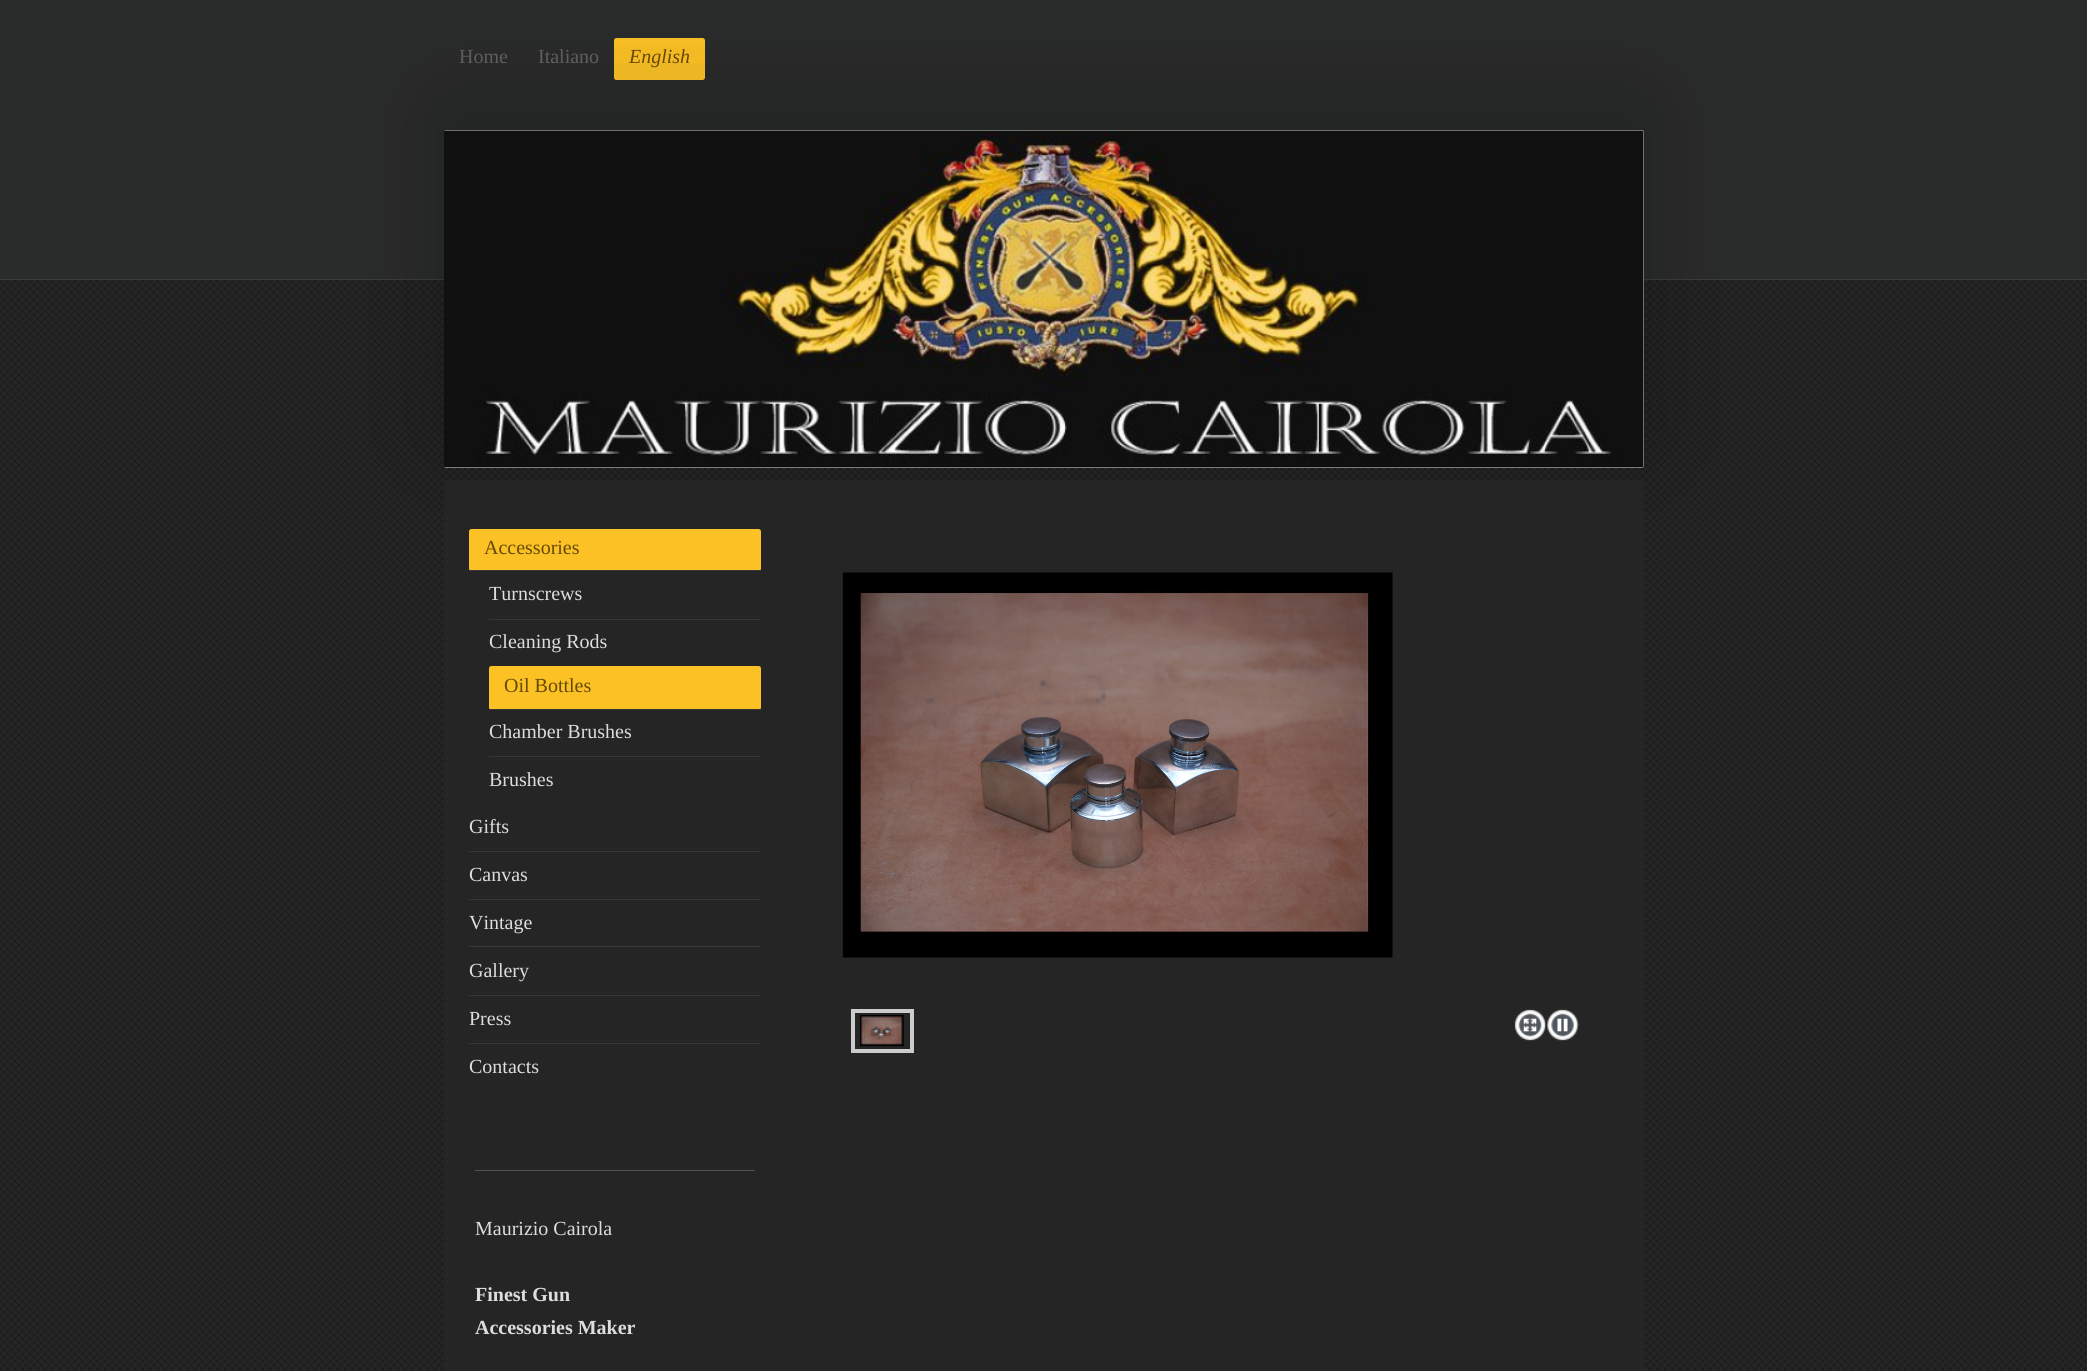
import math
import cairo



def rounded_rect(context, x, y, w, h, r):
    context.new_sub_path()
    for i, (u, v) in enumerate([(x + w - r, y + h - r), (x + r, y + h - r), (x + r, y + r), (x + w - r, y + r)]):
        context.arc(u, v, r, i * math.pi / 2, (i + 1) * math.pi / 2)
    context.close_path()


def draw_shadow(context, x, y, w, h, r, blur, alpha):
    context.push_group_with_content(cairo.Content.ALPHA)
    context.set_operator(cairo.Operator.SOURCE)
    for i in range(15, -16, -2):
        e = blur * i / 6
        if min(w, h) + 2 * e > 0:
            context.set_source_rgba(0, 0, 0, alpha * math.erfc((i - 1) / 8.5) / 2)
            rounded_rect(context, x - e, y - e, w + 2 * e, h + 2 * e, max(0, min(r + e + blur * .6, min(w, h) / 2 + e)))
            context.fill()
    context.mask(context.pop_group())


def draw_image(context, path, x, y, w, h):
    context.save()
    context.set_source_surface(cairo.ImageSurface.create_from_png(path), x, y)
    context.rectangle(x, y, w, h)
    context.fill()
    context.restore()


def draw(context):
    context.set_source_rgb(37 / 255, 37 / 255, 37 / 255)
    context.paint()
    draw_image(context, "images/1.png", 0, 280, 2087, 1091)
    context.set_source_rgb(42 / 255, 43 / 255, 43 / 255)
    context.rectangle(0, 0, 2087, 279)
    context.fill()
    context.set_source_rgb(60 / 255, 62 / 255, 62 / 255)
    context.rectangle(0, 279, 2087, 1)
    context.fill()
    context.set_source_rgb(252 / 255, 193 / 255, 37 / 255)
    rounded_rect(context, 614, 38, 91, 42, 2.5)
    context.fill()
    context.set_source_rgb(0, 0, 0)
    draw_shadow(context, 444, 105, 1200, 338, 2.5, 50, 0.24)
    context.set_source_rgb(238 / 255, 238 / 255, 238 / 255)
    rounded_rect(context, 444, 130, 1200, 338, 2.5)
    context.fill()
    draw_image(context, "images/2.png", 444, 130, 1200, 338)
    context.save()
    rounded_rect(context, 444, 130, 1200, 338, 2.5)
    context.clip()
    context.set_source_rgba(1, 1, 1, 0.4)
    context.rectangle(444, 130, 1200, 1)
    context.fill()
    context.restore()
    context.set_source_rgba(0, 0, 0, 0.3)
    context.new_path()
    context.move_to(444, 466)
    context.curve_to(444, 467, 445, 468, 446, 468)
    context.line_to(1642, 468)
    context.curve_to(1643, 468, 1644, 467, 1644, 466)
    context.close_path()
    context.fill()
    context.set_source_rgb(37 / 255, 37 / 255, 37 / 255)
    context.rectangle(444, 480, 1200, 891)
    context.fill()
    context.set_source_rgb(252 / 255, 193 / 255, 37 / 255)
    rounded_rect(context, 469, 529, 292, 42, 2.5)
    context.fill()
    context.set_source_rgb(55 / 255, 55 / 255, 55 / 255)
    context.rectangle(470, 570, 290, 1)
    context.fill()
    context.rectangle(489, 619, 272, 1)
    context.fill()
    context.rectangle(489, 666, 272, 1)
    context.fill()
    context.set_source_rgb(252 / 255, 193 / 255, 37 / 255)
    rounded_rect(context, 489, 666, 272, 44, 2.5)
    context.fill()
    context.set_source_rgb(55 / 255, 55 / 255, 55 / 255)
    context.rectangle(490, 709, 270, 1)
    context.fill()
    context.rectangle(489, 756, 272, 1)
    context.fill()
    context.rectangle(469, 851, 292, 1)
    context.fill()
    context.rectangle(469, 899, 292, 1)
    context.fill()
    context.rectangle(469, 946, 292, 1)
    context.fill()
    context.rectangle(469, 995, 292, 1)
    context.fill()
    context.rectangle(469, 1043, 292, 1)
    context.fill()
    context.set_source_rgb(83 / 255, 83 / 255, 83 / 255)
    context.rectangle(475, 1170, 280, 1)
    context.fill()
    draw_image(context, "images/3.png", 842, 572, 551, 386)
    context.rectangle(853, 1011, 59, 40)
    context.set_source_rgb(204 / 255, 204 / 255, 204 / 255)
    context.set_line_width(4)
    context.stroke()
    draw_image(context, "images/4.png", 860, 1015, 44, 32)
    draw_image(context, "images/5.png", 1514, 1009, 33, 32)
    draw_image(context, "images/6.png", 1547, 1009, 32, 32)
    context.select_font_face("Liberation Serif")
    context.set_font_size(20)
    context.set_source_rgb(94 / 255, 94 / 255, 94 / 255)
    context.move_to(459, 63)
    context.show_text("Home")
    context.move_to(538, 63)
    context.show_text("Italiano")
    context.select_font_face("Liberation Serif", cairo.FontSlant.ITALIC)
    context.set_source_rgb(101 / 255, 74 / 255, 5 / 255)
    context.move_to(629, 63)
    context.show_text("English")
    context.select_font_face("Liberation Serif")
    context.move_to(484, 554)
    context.show_text("Accessories")
    context.set_source_rgb(221 / 255, 221 / 255, 221 / 255)
    context.move_to(489, 600)
    context.show_text("Turnscrews")
    context.move_to(489, 648)
    context.show_text("Cleaning Rods")
    context.set_source_rgb(101 / 255, 74 / 255, 5 / 255)
    context.move_to(504, 692)
    context.show_text("Oil Bottles")
    context.set_source_rgb(221 / 255, 221 / 255, 221 / 255)
    context.move_to(489, 738)
    context.show_text("Chamber Brushes")
    context.move_to(489, 786)
    context.show_text("Brushes")
    context.move_to(469, 833)
    context.show_text("Gifts")
    context.move_to(469, 881)
    context.show_text("Canvas")
    context.move_to(469, 929)
    context.show_text("Vintage")
    context.move_to(469, 977)
    context.show_text("Gallery")
    context.move_to(469, 1025)
    context.show_text("Press")
    context.move_to(469, 1073)
    context.show_text("Contacts")
    context.move_to(475, 1235)
    context.show_text("Maurizio Cairola")
    context.select_font_face("Liberation Serif", cairo.FontSlant.NORMAL, cairo.FontWeight.BOLD)
    context.move_to(475, 1301)
    context.show_text("Finest Gun")
    context.move_to(475, 1334)
    context.show_text("Accessories Maker")


surface = cairo.ImageSurface(cairo.Format.RGB24, 2087, 1371)
context = cairo.Context(surface)
options = cairo.FontOptions()
options.set_hint_metrics(cairo.HintMetrics.OFF)
options.set_hint_style(cairo.HintStyle.NONE)
context.set_font_options(options)
context.set_miter_limit(4)
draw(context)
surface.write_to_png("out.png")
